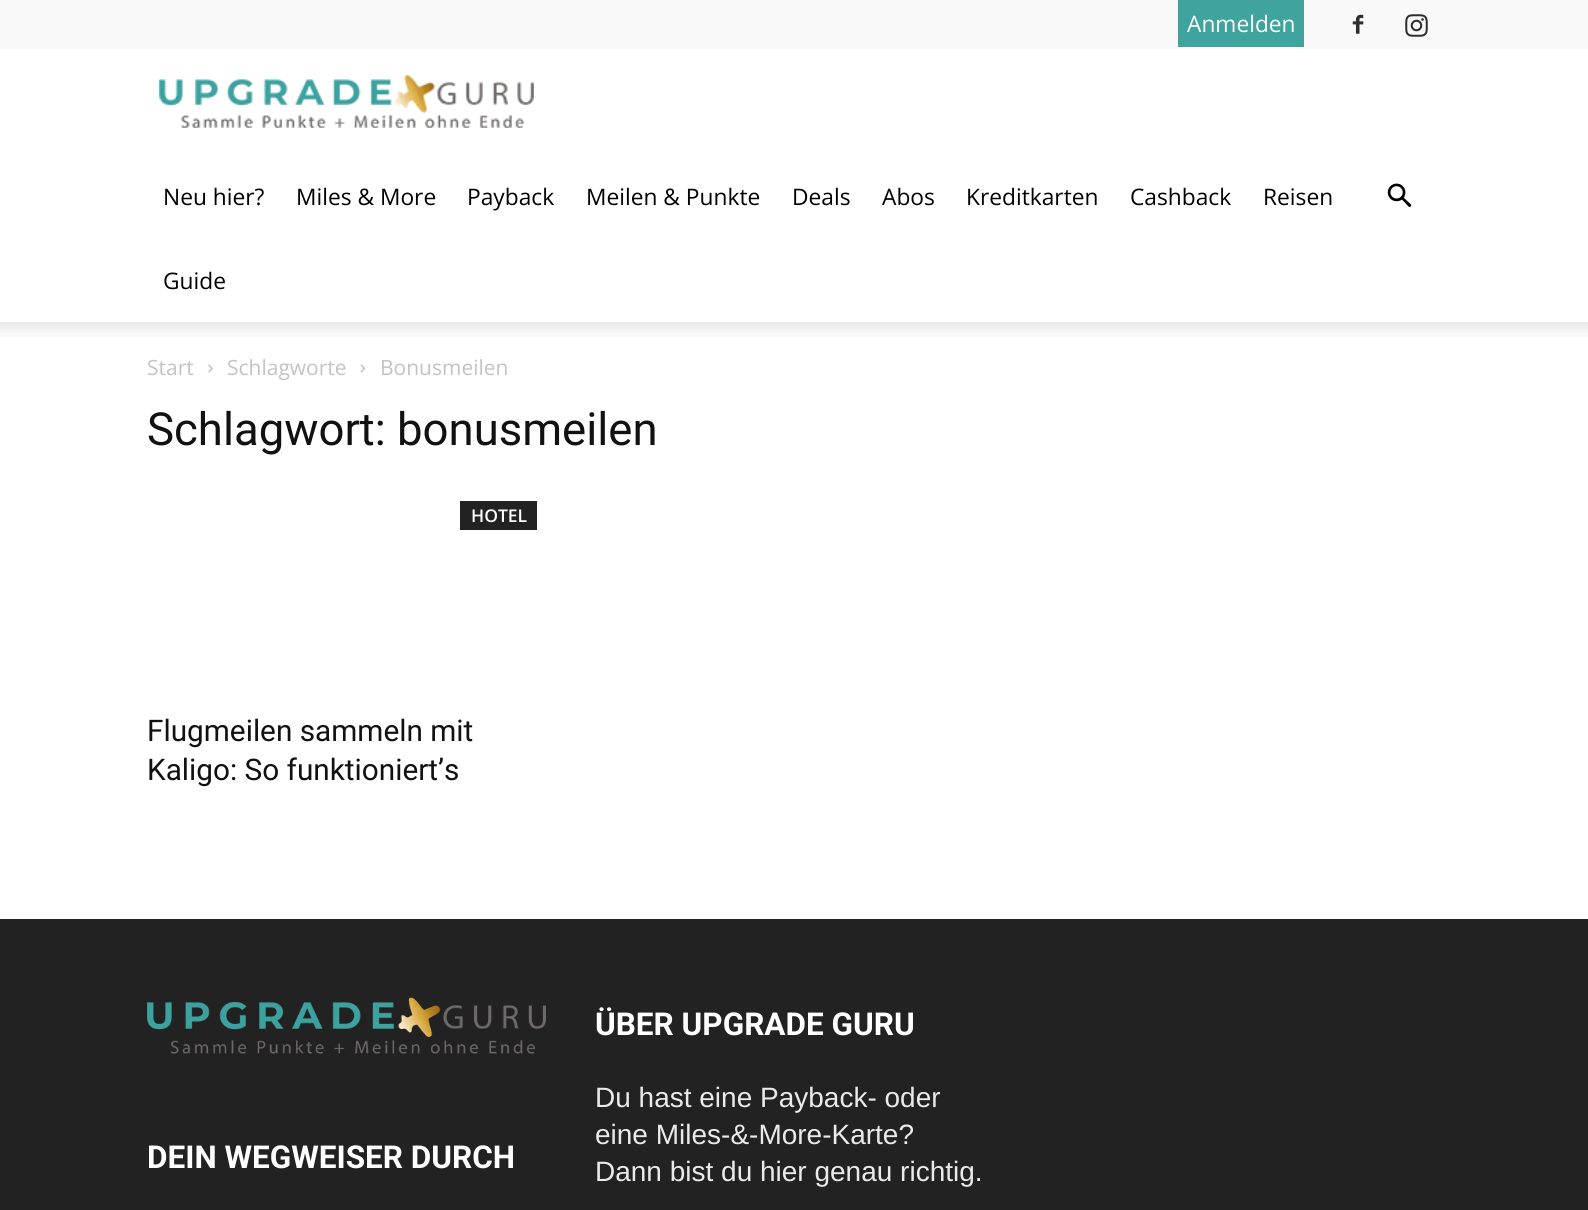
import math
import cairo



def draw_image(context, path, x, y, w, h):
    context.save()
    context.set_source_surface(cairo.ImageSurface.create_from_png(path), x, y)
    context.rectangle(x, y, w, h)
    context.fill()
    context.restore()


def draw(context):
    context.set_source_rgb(1, 1, 1)
    context.paint()
    context.set_source_rgb(249 / 255, 249 / 255, 249 / 255)
    context.rectangle(0, 0, 1588, 49)
    context.fill()
    context.set_source_rgb(63 / 255, 163 / 255, 158 / 255)
    context.rectangle(1178, 0, 126, 47)
    context.fill()
    draw_image(context, "images/1.png", 1352, 14, 12, 20)
    draw_image(context, "images/2.png", 1405, 14, 23, 23)
    draw_image(context, "images/3.png", 159, 75, 375, 53)
    draw_image(context, "images/4.png", 1387, 183, 25, 24)
    draw_image(context, "images/5.png", 0, 322, 1588, 15)
    draw_image(context, "images/6.png", 208, 364, 5, 9)
    draw_image(context, "images/7.png", 360, 364, 6, 9)
    context.set_source_rgb(34 / 255, 34 / 255, 34 / 255)
    context.rectangle(460, 501, 77, 29)
    context.fill()
    context.rectangle(0, 919, 1588, 291)
    context.fill()
    draw_image(context, "images/8.png", 147, 997, 399, 57)
    context.select_font_face("Open Sans")
    context.set_font_size(22.75)
    context.set_source_rgb(1, 1, 1)
    context.move_to(1187, 32)
    context.show_text("Anmelden")
    context.set_source_rgb(0, 0, 0)
    context.move_to(163, 205)
    context.show_text("Neu hier?")
    context.move_to(296, 205)
    context.show_text("Miles & More")
    context.move_to(467, 205)
    context.show_text("Payback")
    context.move_to(586, 205)
    context.show_text("Meilen & Punkte")
    context.move_to(792, 205)
    context.show_text("Deals")
    context.move_to(882, 205)
    context.show_text("Abos")
    context.move_to(966, 205)
    context.show_text("Kreditkarten")
    context.move_to(1130, 205)
    context.show_text("Cashback")
    context.move_to(1263, 205)
    context.show_text("Reisen")
    context.move_to(163, 289)
    context.show_text("Guide")
    context.set_font_size(21)
    context.set_source_rgb(195 / 255, 195 / 255, 195 / 255)
    context.move_to(147, 375)
    context.show_text("Start")
    context.move_to(227, 375)
    context.show_text("Schlagworte")
    context.move_to(380, 375)
    context.show_text("Bonusmeilen")
    context.select_font_face("Roboto")
    context.set_font_size(45.5)
    context.set_source_rgb(17 / 255, 17 / 255, 17 / 255)
    context.move_to(147, 445)
    context.show_text("Schlagwort: bonusmeilen")
    context.select_font_face("Open Sans SemiBold")
    context.set_font_size(17.5)
    context.set_source_rgb(1, 1, 1)
    context.move_to(471, 522)
    context.show_text("HOTEL")
    context.select_font_face("Roboto")
    context.set_font_size(29.75)
    context.set_source_rgb(17 / 255, 17 / 255, 17 / 255)
    context.move_to(147, 741)
    context.show_text("Flugmeilen sammeln mit")
    context.move_to(147, 780)
    context.show_text("Kaligo: So funktioniert’s")
    context.select_font_face("Roboto", cairo.FontSlant.NORMAL, cairo.FontWeight.BOLD)
    context.set_font_size(31.5)
    context.set_source_rgb(1, 1, 1)
    context.move_to(147, 1168)
    context.show_text("DEIN WEGWEISER DURCH")
    context.move_to(595, 1035)
    context.show_text("ÜBER UPGRADE GURU")
    context.select_font_face("Liberation Sans")
    context.set_font_size(28)
    context.set_source_rgb(234 / 255, 234 / 255, 234 / 255)
    context.move_to(595, 1107)
    context.show_text("Du hast eine Payback- oder")
    context.move_to(595, 1144)
    context.show_text("eine Miles-&-More-Karte?")
    context.move_to(595, 1181)
    context.show_text("Dann bist du hier genau richtig.")


surface = cairo.ImageSurface(cairo.Format.RGB24, 1588, 1210)
context = cairo.Context(surface)
options = cairo.FontOptions()
options.set_hint_metrics(cairo.HintMetrics.OFF)
options.set_hint_style(cairo.HintStyle.NONE)
context.set_font_options(options)
context.set_miter_limit(4)
draw(context)
surface.write_to_png("out.png")
